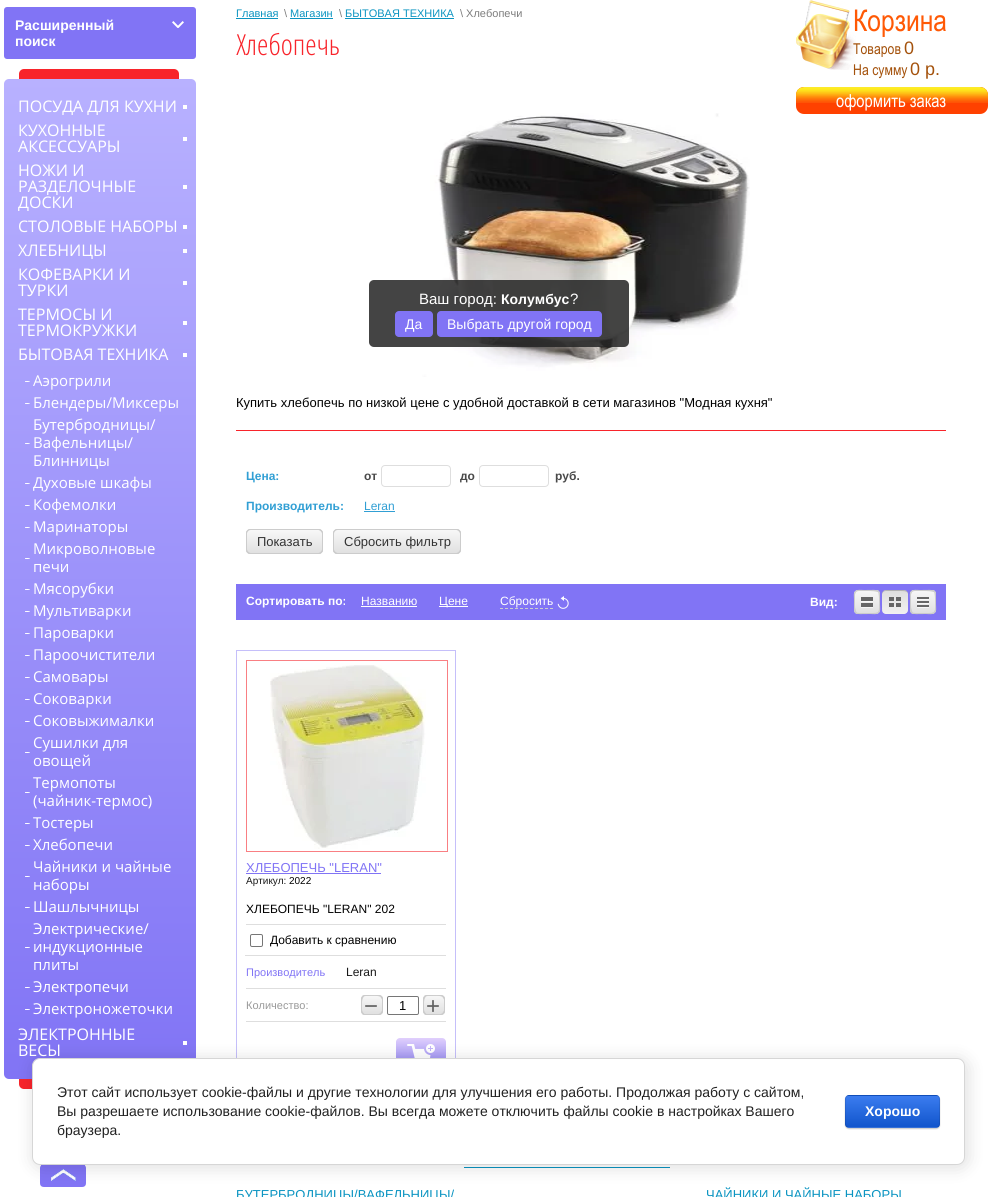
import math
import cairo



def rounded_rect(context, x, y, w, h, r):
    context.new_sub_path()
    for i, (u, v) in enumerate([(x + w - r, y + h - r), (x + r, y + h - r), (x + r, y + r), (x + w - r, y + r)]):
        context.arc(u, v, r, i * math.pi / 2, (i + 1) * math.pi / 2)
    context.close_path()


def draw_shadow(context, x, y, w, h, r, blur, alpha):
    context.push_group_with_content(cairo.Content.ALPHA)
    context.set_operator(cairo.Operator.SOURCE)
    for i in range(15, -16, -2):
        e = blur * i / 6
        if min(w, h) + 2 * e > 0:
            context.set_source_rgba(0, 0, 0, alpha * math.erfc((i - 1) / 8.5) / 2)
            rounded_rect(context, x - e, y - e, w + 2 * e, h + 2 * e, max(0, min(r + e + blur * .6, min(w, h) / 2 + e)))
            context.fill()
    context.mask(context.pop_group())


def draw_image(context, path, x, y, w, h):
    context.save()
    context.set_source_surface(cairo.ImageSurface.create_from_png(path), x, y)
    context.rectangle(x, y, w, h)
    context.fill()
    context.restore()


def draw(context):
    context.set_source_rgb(1, 1, 1)
    context.paint()
    context.set_source_rgb(11 / 255, 148 / 255, 193 / 255)
    context.rectangle(236, 18, 42, 1)
    context.fill()
    context.rectangle(290, 18, 43, 1)
    context.fill()
    context.rectangle(345, 18, 109, 1)
    context.fill()
    draw_image(context, "images/1.png", 422, 113, 328, 264)
    context.set_source_rgb(248 / 255, 36 / 255, 43 / 255)
    context.rectangle(236, 430, 710, 1)
    context.fill()
    rounded_rect(context, 381.5, 465.5, 69, 21, 3.5)
    context.set_source_rgb(222 / 255, 222 / 255, 222 / 255)
    context.set_line_width(1)
    context.stroke()
    rounded_rect(context, 479.5, 465.5, 69, 21, 3.5)
    context.stroke()
    context.set_source_rgb(49 / 255, 159 / 255, 212 / 255)
    context.rectangle(364, 511, 31, 1)
    context.fill()
    gradient = cairo.LinearGradient(285, 529, 285, 554)
    gradient.add_color_stop_rgba(0, 248 / 255, 248 / 255, 248 / 255, 1)
    gradient.add_color_stop_rgba(1, 223 / 255, 223 / 255, 223 / 255, 1)
    context.set_source(gradient)
    rounded_rect(context, 246, 529, 77, 25, 4)
    context.fill()
    context.set_source_rgb(204 / 255, 204 / 255, 204 / 255)
    context.new_path()
    context.move_to(248, 530)
    context.curve_to(247, 530, 246, 532, 246, 533)
    context.line_to(246, 550)
    context.curve_to(246, 552, 248, 554, 250, 554)
    context.line_to(319, 554)
    context.curve_to(320, 554, 322, 553, 322, 552)
    context.line_to(320, 553)
    context.line_to(251, 553)
    context.curve_to(249, 553, 247, 551, 247, 549)
    context.line_to(247, 532)
    context.close_path()
    context.fill()
    context.new_path()
    context.move_to(249, 530)
    context.line_to(318, 530)
    context.curve_to(320, 530, 322, 532, 322, 534)
    context.line_to(322, 551)
    context.line_to(321, 553)
    context.curve_to(322, 553, 323, 551, 323, 550)
    context.line_to(323, 533)
    context.curve_to(323, 531, 321, 529, 319, 529)
    context.line_to(250, 529)
    context.curve_to(249, 529, 247, 530, 247, 531)
    context.close_path()
    context.fill()
    context.new_path()
    context.move_to(247, 552)
    context.curve_to(247, 553, 249, 554, 250, 554)
    context.line_to(319, 554)
    context.curve_to(321, 554, 323, 552, 323, 550)
    context.line_to(323, 533)
    context.curve_to(323, 532, 322, 530, 321, 530)
    context.line_to(322, 532)
    context.line_to(322, 549)
    context.curve_to(322, 551, 320, 553, 318, 553)
    context.line_to(249, 553)
    context.close_path()
    context.fill()
    context.new_path()
    context.move_to(251, 530)
    context.line_to(320, 530)
    context.line_to(322, 531)
    context.curve_to(322, 530, 320, 529, 319, 529)
    context.line_to(250, 529)
    context.curve_to(248, 529, 246, 531, 246, 533)
    context.line_to(246, 550)
    context.curve_to(246, 551, 247, 553, 248, 553)
    context.curve_to(246, 551, 247, 545, 247, 542)
    context.curve_to(247, 539, 245, 530, 251, 530)
    context.close_path()
    context.fill()
    gradient = cairo.LinearGradient(397, 529, 397, 554)
    gradient.add_color_stop_rgba(0, 248 / 255, 248 / 255, 248 / 255, 1)
    gradient.add_color_stop_rgba(1, 223 / 255, 223 / 255, 223 / 255, 1)
    context.set_source(gradient)
    rounded_rect(context, 333, 529, 128, 25, 4)
    context.fill()
    context.set_source_rgb(204 / 255, 204 / 255, 204 / 255)
    context.new_path()
    context.move_to(335, 530)
    context.curve_to(334, 530, 333, 532, 333, 533)
    context.line_to(333, 550)
    context.curve_to(333, 552, 335, 554, 337, 554)
    context.line_to(457, 554)
    context.curve_to(458, 554, 460, 553, 460, 552)
    context.line_to(458, 553)
    context.line_to(338, 553)
    context.curve_to(336, 553, 334, 551, 334, 549)
    context.line_to(334, 532)
    context.close_path()
    context.fill()
    context.new_path()
    context.move_to(336, 530)
    context.line_to(456, 530)
    context.curve_to(458, 530, 460, 532, 460, 534)
    context.line_to(460, 551)
    context.line_to(459, 553)
    context.curve_to(460, 553, 461, 551, 461, 550)
    context.line_to(461, 533)
    context.curve_to(461, 531, 459, 529, 457, 529)
    context.line_to(337, 529)
    context.curve_to(336, 529, 334, 530, 334, 531)
    context.close_path()
    context.fill()
    context.new_path()
    context.move_to(334, 552)
    context.curve_to(334, 553, 336, 554, 337, 554)
    context.line_to(457, 554)
    context.curve_to(459, 554, 461, 552, 461, 550)
    context.line_to(461, 533)
    context.curve_to(461, 532, 460, 530, 459, 530)
    context.line_to(460, 532)
    context.line_to(460, 549)
    context.curve_to(460, 551, 458, 553, 456, 553)
    context.line_to(336, 553)
    context.close_path()
    context.fill()
    context.new_path()
    context.move_to(338, 530)
    context.line_to(458, 530)
    context.line_to(460, 531)
    context.curve_to(460, 530, 458, 529, 457, 529)
    context.line_to(337, 529)
    context.curve_to(335, 529, 333, 531, 333, 533)
    context.line_to(333, 550)
    context.curve_to(333, 551, 334, 553, 335, 553)
    context.curve_to(333, 551, 334, 545, 334, 542)
    context.curve_to(334, 539, 332, 530, 338, 530)
    context.close_path()
    context.fill()
    context.set_source_rgb(129 / 255, 116 / 255, 245 / 255)
    context.rectangle(236, 584, 710, 36)
    context.fill()
    context.set_source_rgb(1, 1, 1)
    context.rectangle(361, 606, 56, 1)
    context.fill()
    context.rectangle(439, 606, 29, 1)
    context.fill()
    context.new_path()
    context.move_to(500, 608.5)
    context.line_to(553, 608.5)
    context.set_source_rgb(204 / 255, 204 / 255, 204 / 255)
    context.set_dash([3, 2])
    context.stroke()
    draw_image(context, "images/2.png", 557, 596, 12, 13)
    gradient = cairo.LinearGradient(867, 590, 867, 614)
    gradient.add_color_stop_rgba(0, 248 / 255, 248 / 255, 248 / 255, 1)
    gradient.add_color_stop_rgba(1, 223 / 255, 223 / 255, 223 / 255, 1)
    context.set_source(gradient)
    rounded_rect(context, 854, 590, 26, 24, 4)
    context.fill()
    context.set_source_rgb(204 / 255, 204 / 255, 204 / 255)
    context.new_path()
    context.move_to(855.5, 591)
    context.curve_to(853, 592.5, 854, 596.5, 854, 599.5)
    context.curve_to(854, 616.5, 852.5, 614, 870, 614)
    context.curve_to(872.5, 614, 877, 615, 879, 612.5)
    context.curve_to(878, 613, 861, 613.5, 859.5, 613)
    context.curve_to(858.5, 613, 857, 613, 856.5, 612)
    context.curve_to(855.5, 611, 855.5, 609.5, 855, 608)
    context.line_to(855, 593.5)
    context.close_path()
    context.fill()
    context.new_path()
    context.move_to(857, 591)
    context.curve_to(861, 591, 874.5, 590.5, 877.5, 592)
    context.curve_to(878, 592, 878.5, 592.5, 878.5, 593.5)
    context.curve_to(879, 594.5, 879.5, 609, 879.5, 610)
    context.line_to(878.5, 613)
    context.curve_to(881, 611.5, 880, 607.5, 880, 604.5)
    context.curve_to(880, 587.5, 881.5, 590, 864, 590)
    context.curve_to(861.5, 590, 857, 589, 855, 591.5)
    context.close_path()
    context.fill()
    context.new_path()
    context.move_to(854.5, 612)
    context.curve_to(855, 613, 856.5, 614, 858, 614)
    context.line_to(876, 614)
    context.curve_to(878, 614, 880, 612, 880, 610)
    context.line_to(880, 594)
    context.curve_to(880, 592.5, 879.5, 591.5, 878.5, 591)
    context.curve_to(879.5, 592.5, 879.5, 608, 879, 608.5)
    context.curve_to(879, 610, 878.5, 611.5, 877.5, 612.5)
    context.line_to(876, 613)
    context.line_to(857.5, 613)
    context.curve_to(856.5, 613, 855, 613, 854.5, 612)
    context.close_path()
    context.fill()
    context.new_path()
    context.move_to(859, 591)
    context.line_to(874, 591)
    context.curve_to(876.5, 591, 878.5, 591, 879.5, 591.5)
    context.curve_to(878.5, 590.5, 877.5, 590, 876, 590)
    context.line_to(858, 590)
    context.curve_to(856, 590, 854, 592, 854, 594)
    context.line_to(854, 610)
    context.curve_to(854, 611.5, 855, 613, 856, 613.5)
    context.curve_to(855, 611.5, 854, 595.5, 855.5, 593)
    context.curve_to(856, 591.5, 857.5, 591, 859, 591)
    context.close_path()
    context.fill()
    draw_image(context, "images/3.png", 861, 597, 12, 11)
    gradient = cairo.LinearGradient(895, 590, 895, 614)
    gradient.add_color_stop_rgba(0, 222 / 255, 222 / 255, 222 / 255, 1)
    gradient.add_color_stop_rgba(1, 241 / 255, 241 / 255, 241 / 255, 1)
    context.set_source(gradient)
    rounded_rect(context, 882, 590, 26, 24, 4)
    context.fill()
    context.set_source_rgba(0, 0, 0, 0.2)
    context.set_fill_rule(cairo.FillRule.EVEN_ODD)
    context.new_path()
    context.move_to(886, 591)
    context.line_to(901, 591)
    context.curve_to(906.5, 591, 908, 592, 908, 595)
    context.curve_to(908, 590, 905, 590, 901, 590)
    context.line_to(889, 590)
    context.curve_to(885.5, 590, 882, 590, 882, 594.5)
    context.curve_to(882.5, 592.5, 883.5, 591, 886, 591)
    context.close_path()
    context.move_to(882.5, 612)
    context.curve_to(882, 610.5, 882, 607.5, 882, 603)
    context.curve_to(882, 605.5, 881.5, 610, 882.5, 612)
    context.close_path()
    context.fill()
    draw_image(context, "images/4.png", 889, 597, 12, 10)
    gradient = cairo.LinearGradient(923, 590, 923, 614)
    gradient.add_color_stop_rgba(0, 248 / 255, 248 / 255, 248 / 255, 1)
    gradient.add_color_stop_rgba(1, 223 / 255, 223 / 255, 223 / 255, 1)
    context.set_source(gradient)
    rounded_rect(context, 910, 590, 26, 24, 4)
    context.fill()
    context.set_source_rgb(204 / 255, 204 / 255, 204 / 255)
    context.set_fill_rule(cairo.FillRule.WINDING)
    context.new_path()
    context.move_to(911.5, 591)
    context.curve_to(909, 592.5, 910, 596.5, 910, 599.5)
    context.curve_to(910, 616.5, 908.5, 614, 926, 614)
    context.curve_to(928.5, 614, 933, 615, 935, 612.5)
    context.curve_to(934, 613, 917, 613.5, 915.5, 613)
    context.curve_to(914.5, 613, 913, 613, 912.5, 612)
    context.curve_to(911.5, 611, 911.5, 609.5, 911, 608)
    context.line_to(911, 593.5)
    context.close_path()
    context.fill()
    context.new_path()
    context.move_to(913, 591)
    context.curve_to(917, 591, 930.5, 590.5, 933.5, 592)
    context.curve_to(934, 592, 934.5, 592.5, 934.5, 593.5)
    context.curve_to(935, 594.5, 935.5, 609, 935.5, 610)
    context.line_to(934.5, 613)
    context.curve_to(937, 611.5, 936, 607.5, 936, 604.5)
    context.curve_to(936, 587.5, 937.5, 590, 920, 590)
    context.curve_to(917.5, 590, 913, 589, 911, 591.5)
    context.close_path()
    context.fill()
    context.new_path()
    context.move_to(910.5, 612)
    context.curve_to(911, 613, 912.5, 614, 914, 614)
    context.line_to(932, 614)
    context.curve_to(934, 614, 936, 612, 936, 610)
    context.line_to(936, 594)
    context.curve_to(936, 592.5, 935.5, 591.5, 934.5, 591)
    context.curve_to(935.5, 592.5, 935.5, 608, 935, 608.5)
    context.curve_to(935, 610, 934.5, 611.5, 933.5, 612.5)
    context.line_to(932, 613)
    context.line_to(913.5, 613)
    context.curve_to(912.5, 613, 911, 613, 910.5, 612)
    context.close_path()
    context.fill()
    context.new_path()
    context.move_to(915, 591)
    context.line_to(930, 591)
    context.curve_to(932.5, 591, 934.5, 591, 935.5, 591.5)
    context.curve_to(934.5, 590.5, 933.5, 590, 932, 590)
    context.line_to(914, 590)
    context.curve_to(912, 590, 910, 592, 910, 594)
    context.line_to(910, 610)
    context.curve_to(910, 611.5, 911, 613, 912, 613.5)
    context.curve_to(911, 611.5, 910, 595.5, 911.5, 593)
    context.curve_to(912, 591.5, 913.5, 591, 915, 591)
    context.close_path()
    context.fill()
    draw_image(context, "images/5.png", 917, 597, 12, 11)
    context.rectangle(236.5, 650.5, 219, 431)
    context.set_source_rgb(197 / 255, 191 / 255, 250 / 255)
    context.set_dash([])
    context.stroke()
    context.rectangle(246.5, 660.5, 201, 191)
    context.set_source_rgb(249 / 255, 127 / 255, 131 / 255)
    context.stroke()
    draw_image(context, "images/6.png", 270, 665, 156, 184)
    context.set_source_rgb(129 / 255, 116 / 255, 245 / 255)
    context.rectangle(246, 873, 135, 1)
    context.fill()
    context.set_source_rgb(222 / 255, 222 / 255, 222 / 255)
    context.rectangle(246, 924, 200, 1)
    context.fill()
    rounded_rect(context, 250.5, 934.5, 12, 12, 1.5)
    context.set_source_rgb(118 / 255, 118 / 255, 118 / 255)
    context.stroke()
    context.set_source_rgb(222 / 255, 222 / 255, 222 / 255)
    context.rectangle(245, 955, 201, 1)
    context.fill()
    context.rectangle(246, 988, 200, 1)
    context.fill()
    gradient = cairo.LinearGradient(372, 995, 372, 1015)
    gradient.add_color_stop_rgba(0, 248 / 255, 248 / 255, 248 / 255, 1)
    gradient.add_color_stop_rgba(1, 223 / 255, 223 / 255, 223 / 255, 1)
    context.set_source(gradient)
    rounded_rect(context, 361, 995, 22, 20, 4)
    context.fill()
    context.set_source_rgb(204 / 255, 204 / 255, 204 / 255)
    context.new_path()
    context.move_to(363, 995.5)
    context.curve_to(362, 996.5, 361, 997.5, 361, 999)
    context.line_to(361, 1011)
    context.curve_to(361, 1013, 363, 1015, 365, 1015)
    context.line_to(379, 1015)
    context.curve_to(380.5, 1015, 382, 1014, 382.5, 1013)
    context.curve_to(380, 1015, 374.5, 1014, 372, 1014)
    context.line_to(364.5, 1014)
    context.line_to(363.5, 1013)
    context.curve_to(362.5, 1012, 362, 1011, 362, 1009.5)
    context.line_to(362, 999)
    context.curve_to(362, 998, 362.5, 996.5, 363, 995.5)
    context.close_path()
    context.fill()
    context.new_path()
    context.move_to(364, 996)
    context.curve_to(367.5, 996, 378.5, 995, 380.5, 997)
    context.line_to(382, 999.5)
    context.curve_to(382, 1001, 382, 1009.5, 382, 1012)
    context.curve_to(382, 1013, 381.5, 1014, 381, 1014.5)
    context.curve_to(382, 1014, 383, 1012.5, 383, 1011)
    context.line_to(383, 999)
    context.curve_to(383, 997, 381, 995, 379, 995)
    context.line_to(365, 995)
    context.curve_to(363.5, 995, 362.5, 995.5, 361.5, 996.5)
    context.curve_to(362.5, 996.5, 363, 996, 364, 996)
    context.close_path()
    context.fill()
    context.new_path()
    context.move_to(361.5, 1013.5)
    context.curve_to(362.5, 1014.5, 363.5, 1015, 365, 1015)
    context.line_to(379, 1015)
    context.curve_to(381, 1015, 383, 1013, 383, 1011)
    context.line_to(383, 999)
    context.curve_to(383, 997.5, 382, 996, 381, 995.5)
    context.curve_to(381.5, 996, 382, 997, 382, 998)
    context.curve_to(382, 1000.5, 382, 1009, 382, 1010.5)
    context.line_to(380.5, 1013)
    context.curve_to(378.5, 1015, 373, 1014, 370, 1014)
    context.curve_to(368, 1014, 363.5, 1014.5, 361.5, 1013.5)
    context.close_path()
    context.fill()
    context.new_path()
    context.move_to(366, 996)
    context.curve_to(369, 996, 380, 995, 382.5, 997)
    context.curve_to(382, 996, 380.5, 995, 379, 995)
    context.line_to(365, 995)
    context.curve_to(363, 995, 361, 997, 361, 999)
    context.line_to(361, 1011)
    context.curve_to(361, 1012.5, 362, 1013.5, 363, 1014.5)
    context.curve_to(361.5, 1012.5, 361.5, 1000, 363, 998)
    context.curve_to(363.5, 996.5, 364.5, 996, 366, 996)
    context.close_path()
    context.fill()
    rounded_rect(context, 387.5, 996.5, 31, 18, 1.5)
    context.set_source_rgb(118 / 255, 118 / 255, 118 / 255)
    context.stroke()
    gradient = cairo.LinearGradient(434, 995, 434, 1015)
    gradient.add_color_stop_rgba(0, 248 / 255, 248 / 255, 248 / 255, 1)
    gradient.add_color_stop_rgba(1, 223 / 255, 223 / 255, 223 / 255, 1)
    context.set_source(gradient)
    rounded_rect(context, 423, 995, 22, 20, 4)
    context.fill()
    context.set_source_rgb(204 / 255, 204 / 255, 204 / 255)
    context.new_path()
    context.move_to(425, 995.5)
    context.curve_to(424, 996.5, 423, 997.5, 423, 999)
    context.line_to(423, 1011)
    context.curve_to(423, 1013, 425, 1015, 427, 1015)
    context.line_to(441, 1015)
    context.curve_to(442.5, 1015, 444, 1014, 444.5, 1013)
    context.curve_to(442, 1015, 436.5, 1014, 434, 1014)
    context.line_to(426.5, 1014)
    context.line_to(425.5, 1013)
    context.curve_to(424.5, 1012, 424, 1011, 424, 1009.5)
    context.line_to(424, 999)
    context.curve_to(424, 998, 424.5, 996.5, 425, 995.5)
    context.close_path()
    context.fill()
    context.new_path()
    context.move_to(426, 996)
    context.curve_to(429.5, 996, 440.5, 995, 442.5, 997)
    context.line_to(444, 999.5)
    context.curve_to(444, 1001, 444, 1009.5, 444, 1012)
    context.curve_to(444, 1013, 443.5, 1014, 443, 1014.5)
    context.curve_to(444, 1014, 445, 1012.5, 445, 1011)
    context.line_to(445, 999)
    context.curve_to(445, 997, 443, 995, 441, 995)
    context.line_to(427, 995)
    context.curve_to(425.5, 995, 424.5, 995.5, 423.5, 996.5)
    context.curve_to(424.5, 996.5, 425, 996, 426, 996)
    context.close_path()
    context.fill()
    context.new_path()
    context.move_to(423.5, 1013.5)
    context.curve_to(424.5, 1014.5, 425.5, 1015, 427, 1015)
    context.line_to(441, 1015)
    context.curve_to(443, 1015, 445, 1013, 445, 1011)
    context.line_to(445, 999)
    context.curve_to(445, 997.5, 444, 996, 443, 995.5)
    context.curve_to(443.5, 996, 444, 997, 444, 998)
    context.curve_to(444, 1000.5, 444, 1009, 444, 1010.5)
    context.line_to(442.5, 1013)
    context.curve_to(440.5, 1015, 435, 1014, 432, 1014)
    context.curve_to(430, 1014, 425.5, 1014.5, 423.5, 1013.5)
    context.close_path()
    context.fill()
    context.new_path()
    context.move_to(428, 996)
    context.curve_to(431, 996, 442, 995, 444.5, 997)
    context.curve_to(444, 996, 442.5, 995, 441, 995)
    context.line_to(427, 995)
    context.curve_to(425, 995, 423, 997, 423, 999)
    context.line_to(423, 1011)
    context.curve_to(423, 1012.5, 424, 1013.5, 425, 1014.5)
    context.curve_to(423.5, 1012.5, 423.5, 1000, 425, 998)
    context.curve_to(425.5, 996.5, 426.5, 996, 428, 996)
    context.close_path()
    context.fill()
    context.set_source_rgb(222 / 255, 222 / 255, 222 / 255)
    context.rectangle(246, 1021, 200, 1)
    context.fill()
    gradient = cairo.LinearGradient(421, 1038, 421, 1072)
    gradient.add_color_stop_rgba(0, 224 / 255, 207 / 255, 252 / 255, 1)
    gradient.add_color_stop_rgba(1, 128 / 255, 119 / 255, 241 / 255, 1)
    context.set_source(gradient)
    rounded_rect(context, 396, 1038, 50, 34, 4)
    context.fill()
    draw_image(context, "images/7.png", 407, 1044, 28, 14)
    context.set_source_rgb(11 / 255, 148 / 255, 193 / 255)
    context.rectangle(464, 1167, 206, 1)
    context.fill()
    context.set_source_rgb(129 / 255, 116 / 255, 245 / 255)
    rounded_rect(context, 4, 7, 192, 52, 3)
    context.fill()
    draw_image(context, "images/8.png", 172, 21, 12, 7)
    draw_image(context, "images/9.png", 796, 0, 60, 70)
    context.set_source_rgb(1, 65 / 255, 0)
    rounded_rect(context, 796, 87, 192, 27, 8)
    context.fill()
    draw_image(context, "images/10.png", 796, 87, 192, 16)
    gradient = cairo.LinearGradient(100, 79, 100, 1079)
    gradient.add_color_stop_rgba(0, 184 / 255, 177 / 255, 1, 1)
    gradient.add_color_stop_rgba(1, 129 / 255, 116 / 255, 245 / 255, 1)
    context.set_source(gradient)
    rounded_rect(context, 4, 79, 192, 1000, 5)
    context.fill()
    draw_image(context, "images/11.png", 19, 69, 160, 10)
    context.set_source_rgb(1, 1, 1)
    context.rectangle(183, 105, 4, 4)
    context.fill()
    context.rectangle(183, 137, 4, 4)
    context.fill()
    context.rectangle(183, 185, 4, 4)
    context.fill()
    context.rectangle(183, 225, 4, 4)
    context.fill()
    context.rectangle(183, 249, 4, 4)
    context.fill()
    context.rectangle(183, 281, 4, 4)
    context.fill()
    context.rectangle(183, 321, 4, 4)
    context.fill()
    context.rectangle(183, 353, 4, 4)
    context.fill()
    draw_image(context, "images/12.png", 25, 381, 5, 1)
    draw_image(context, "images/12.png", 25, 403, 5, 1)
    draw_image(context, "images/12.png", 25, 443, 5, 1)
    draw_image(context, "images/12.png", 25, 483, 5, 1)
    draw_image(context, "images/12.png", 25, 505, 5, 1)
    draw_image(context, "images/12.png", 25, 527, 5, 1)
    draw_image(context, "images/12.png", 25, 558, 5, 1)
    draw_image(context, "images/12.png", 25, 589, 5, 1)
    draw_image(context, "images/12.png", 25, 611, 5, 1)
    draw_image(context, "images/12.png", 25, 633, 5, 1)
    draw_image(context, "images/12.png", 25, 655, 5, 1)
    draw_image(context, "images/12.png", 25, 677, 5, 1)
    draw_image(context, "images/12.png", 25, 699, 5, 1)
    draw_image(context, "images/12.png", 25, 721, 5, 1)
    draw_image(context, "images/12.png", 25, 752, 5, 1)
    draw_image(context, "images/12.png", 25, 792, 5, 1)
    draw_image(context, "images/12.png", 25, 823, 5, 1)
    draw_image(context, "images/12.png", 25, 845, 5, 1)
    draw_image(context, "images/12.png", 25, 876, 5, 1)
    draw_image(context, "images/12.png", 25, 907, 5, 1)
    draw_image(context, "images/12.png", 25, 947, 5, 1)
    draw_image(context, "images/12.png", 25, 987, 5, 1)
    draw_image(context, "images/12.png", 25, 1009, 5, 1)
    context.rectangle(183, 1041, 4, 4)
    context.fill()
    draw_image(context, "images/13.png", 19, 1079, 13, 10)
    context.set_source_rgba(36 / 255, 36 / 255, 36 / 255, 0.85)
    rounded_rect(context, 369, 280, 260, 67, 5)
    context.fill()
    context.set_source_rgb(129 / 255, 116 / 255, 245 / 255)
    rounded_rect(context, 395, 311, 38, 26, 4)
    context.fill()
    rounded_rect(context, 437, 311, 165, 26, 4)
    context.fill()
    draw_image(context, "images/14.png", 40, 1165, 46, 22)
    context.set_source_rgb(0, 0, 0)
    draw_shadow(context, 34, 1060, 933, 107, 8, 9, 0.14)
    context.set_source_rgb(1, 1, 1)
    rounded_rect(context, 32.5, 1058.5, 932, 106, 7.5)
    context.fill_preserve()
    context.set_source_rgb(214 / 255, 214 / 255, 214 / 255)
    context.stroke()
    context.set_source_rgb(0, 0, 0)
    draw_shadow(context, 845, 1096, 95, 33, 4, 0.5, 0.2)
    context.save()
    rounded_rect(context, 845, 1095, 95, 33, 4)
    context.clip()
    gradient = cairo.LinearGradient(893, 1065, 893, 1096)
    gradient.add_color_stop_rgba(0, 59 / 255, 124 / 255, 239 / 255, 1)
    gradient.add_color_stop_rgba(1, 17 / 255, 85 / 255, 204 / 255, 1)
    context.set_source(gradient)
    context.rectangle(845, 1095, 95, 1)
    context.fill()
    gradient = cairo.LinearGradient(893, 1096, 893, 1127)
    gradient.add_color_stop_rgba(0, 59 / 255, 124 / 255, 239 / 255, 1)
    gradient.add_color_stop_rgba(1, 17 / 255, 85 / 255, 204 / 255, 1)
    context.set_source(gradient)
    context.rectangle(845, 1096, 95, 31)
    context.fill()
    gradient = cairo.LinearGradient(893, 1127, 893, 1158)
    gradient.add_color_stop_rgba(0, 59 / 255, 124 / 255, 239 / 255, 1)
    gradient.add_color_stop_rgba(1, 17 / 255, 85 / 255, 204 / 255, 1)
    context.set_source(gradient)
    context.rectangle(845, 1127, 95, 1)
    context.fill()
    context.restore()
    rounded_rect(context, 845.5, 1095.5, 94, 32, 3.5)
    context.set_source_rgba(0, 0, 0, 0.1)
    context.stroke()
    context.select_font_face("Liberation Sans")
    context.set_font_size(11)
    context.set_source_rgb(11 / 255, 148 / 255, 193 / 255)
    context.move_to(236, 17)
    context.show_text("Главная")
    context.set_source_rgb(124 / 255, 124 / 255, 124 / 255)
    context.move_to(284, 17)
    context.show_text("\\")
    context.set_source_rgb(11 / 255, 148 / 255, 193 / 255)
    context.move_to(290, 17)
    context.show_text("Магазин")
    context.set_source_rgb(124 / 255, 124 / 255, 124 / 255)
    context.move_to(339, 17)
    context.show_text("\\")
    context.set_source_rgb(11 / 255, 148 / 255, 193 / 255)
    context.move_to(345, 17)
    context.show_text("БЫТОВАЯ ТЕХНИКА")
    context.set_source_rgb(124 / 255, 124 / 255, 124 / 255)
    context.move_to(460, 17)
    context.show_text("\\ Хлебопечи")
    context.select_font_face("Open Sans Light")
    context.set_font_size(29)
    context.set_source_rgb(248 / 255, 36 / 255, 43 / 255)
    context.move_to(236, 55)
    context.show_text("Хлебопечь")
    context.select_font_face("Liberation Sans")
    context.set_font_size(13)
    context.set_source_rgb(0, 0, 0)
    context.move_to(236, 407)
    context.show_text("Купить хлебопечь по низкой цене с удобной доставкой в сети магазинов \"Модная кухня\"")
    context.select_font_face("Liberation Sans", cairo.FontSlant.NORMAL, cairo.FontWeight.BOLD)
    context.set_font_size(12)
    context.set_source_rgb(49 / 255, 159 / 255, 212 / 255)
    context.move_to(246, 480)
    context.show_text("Цена:")
    context.set_source_rgb(73 / 255, 73 / 255, 73 / 255)
    context.move_to(364, 480)
    context.show_text("от")
    context.move_to(460, 480)
    context.show_text("до")
    context.move_to(555, 480)
    context.show_text("руб.")
    context.set_source_rgb(49 / 255, 159 / 255, 212 / 255)
    context.move_to(246, 510)
    context.show_text("Производитель:")
    context.select_font_face("Liberation Sans")
    context.move_to(364, 510)
    context.show_text("Leran")
    context.set_font_size(13)
    context.set_source_rgb(51 / 255, 51 / 255, 51 / 255)
    context.move_to(257, 546)
    context.show_text("Показать")
    context.move_to(344, 546)
    context.show_text("Сбросить фильтр")
    context.select_font_face("Liberation Sans", cairo.FontSlant.NORMAL, cairo.FontWeight.BOLD)
    context.set_font_size(12)
    context.set_source_rgb(1, 1, 1)
    context.move_to(246, 605)
    context.show_text("Сортировать по:")
    context.select_font_face("Liberation Sans")
    context.move_to(361, 605)
    context.show_text("Названию")
    context.move_to(439, 605)
    context.show_text("Цене")
    context.move_to(500, 605)
    context.show_text("Сбросить")
    context.select_font_face("Liberation Sans", cairo.FontSlant.NORMAL, cairo.FontWeight.BOLD)
    context.move_to(810, 606)
    context.show_text("Вид:")
    context.select_font_face("Liberation Sans")
    context.set_font_size(13)
    context.set_source_rgb(129 / 255, 116 / 255, 245 / 255)
    context.move_to(246, 872)
    context.show_text("ХЛЕБОПЕЧЬ \"LERAN\"")
    context.set_font_size(10)
    context.set_source_rgb(25 / 255, 25 / 255, 25 / 255)
    context.move_to(246, 884)
    context.show_text("Артикул:")
    context.set_source_rgb(0, 0, 0)
    context.move_to(289, 884)
    context.show_text("2022")
    context.set_font_size(12)
    context.move_to(246, 913)
    context.show_text("ХЛЕБОПЕЧЬ \"LERAN\" 202")
    context.move_to(270, 944)
    context.show_text("Добавить к сравнению")
    context.set_font_size(11)
    context.set_source_rgb(129 / 255, 116 / 255, 245 / 255)
    context.move_to(246, 976)
    context.show_text("Производитель")
    context.set_font_size(12)
    context.set_source_rgb(25 / 255, 25 / 255, 25 / 255)
    context.move_to(346, 976)
    context.show_text("Leran")
    context.set_font_size(11)
    context.set_source_rgb(153 / 255, 153 / 255, 153 / 255)
    context.move_to(246, 1009)
    context.show_text("Количество:")
    context.set_font_size(24)
    context.set_source_rgb(98 / 255, 98 / 255, 98 / 255)
    context.move_to(364, 1014)
    context.show_text("−")
    context.set_font_size(13)
    context.set_source_rgb(0, 0, 0)
    context.move_to(399, 1010)
    context.show_text("1")
    context.set_font_size(24)
    context.set_source_rgb(98 / 255, 98 / 255, 98 / 255)
    context.move_to(426, 1014)
    context.show_text("+")
    context.set_font_size(13)
    context.set_source_rgb(11 / 255, 148 / 255, 193 / 255)
    context.move_to(236, 1199)
    context.show_text("БУТЕРБРОДНИЦЫ/ВАФЕЛЬНИЦЫ/")
    context.move_to(706, 1199)
    context.show_text("ЧАЙНИКИ И ЧАЙНЫЕ НАБОРЫ")
    context.select_font_face("Liberation Sans", cairo.FontSlant.NORMAL, cairo.FontWeight.BOLD)
    context.set_font_size(14)
    context.set_source_rgb(1, 1, 1)
    context.move_to(15, 30)
    context.show_text("Расширенный")
    context.move_to(15, 46)
    context.show_text("поиск")
    context.select_font_face("Arial")
    context.set_font_size(30)
    context.set_source_rgb(1, 89 / 255, 5 / 255)
    context.move_to(853, 31)
    context.show_text("Корзина")
    context.set_font_size(15)
    context.set_source_rgb(164 / 255, 82 / 255, 12 / 255)
    context.move_to(853, 54)
    context.show_text("Товаров")
    context.select_font_face("Liberation Sans")
    context.set_font_size(18)
    context.move_to(904, 54)
    context.show_text("0")
    context.select_font_face("Arial")
    context.set_font_size(15)
    context.move_to(853, 75)
    context.show_text("На сумму")
    context.select_font_face("Liberation Sans")
    context.set_font_size(18)
    context.move_to(910, 75)
    context.show_text("0 р.")
    context.select_font_face("Arial")
    context.set_source_rgb(1, 1, 1)
    context.move_to(836, 107)
    context.show_text("оформить заказ")
    context.select_font_face("Open Sans")
    context.set_font_size(16)
    context.move_to(18, 112)
    context.show_text("ПОСУДА ДЛЯ КУХНИ")
    context.move_to(18, 136)
    context.show_text("КУХОННЫЕ")
    context.move_to(18, 152)
    context.show_text("АКСЕССУАРЫ")
    context.move_to(18, 176)
    context.show_text("НОЖИ И")
    context.move_to(18, 192)
    context.show_text("РАЗДЕЛОЧНЫЕ")
    context.move_to(18, 208)
    context.show_text("ДОСКИ")
    context.move_to(18, 232)
    context.show_text("СТОЛОВЫЕ НАБОРЫ")
    context.move_to(18, 256)
    context.show_text("ХЛЕБНИЦЫ")
    context.move_to(18, 280)
    context.show_text("КОФЕВАРКИ И")
    context.move_to(18, 296)
    context.show_text("ТУРКИ")
    context.move_to(18, 320)
    context.show_text("ТЕРМОСЫ И")
    context.move_to(18, 336)
    context.show_text("ТЕРМОКРУЖКИ")
    context.move_to(18, 360)
    context.show_text("БЫТОВАЯ ТЕХНИКА")
    context.set_font_size(15)
    context.move_to(33, 386)
    context.show_text("Аэрогрили")
    context.move_to(33, 408)
    context.show_text("Блендеры/Миксеры")
    context.move_to(33, 430)
    context.show_text("Бутербродницы/")
    context.move_to(33, 448)
    context.show_text("Вафельницы/")
    context.move_to(33, 466)
    context.show_text("Блинницы")
    context.move_to(33, 488)
    context.show_text("Духовые шкафы")
    context.move_to(33, 510)
    context.show_text("Кофемолки")
    context.move_to(33, 532)
    context.show_text("Маринаторы")
    context.move_to(33, 554)
    context.show_text("Микроволновые")
    context.move_to(33, 572)
    context.show_text("печи")
    context.move_to(33, 594)
    context.show_text("Мясорубки")
    context.move_to(33, 616)
    context.show_text("Мультиварки")
    context.move_to(33, 638)
    context.show_text("Пароварки")
    context.move_to(33, 660)
    context.show_text("Пароочистители")
    context.move_to(33, 682)
    context.show_text("Самовары")
    context.move_to(33, 704)
    context.show_text("Соковарки")
    context.move_to(33, 726)
    context.show_text("Соковыжималки")
    context.move_to(33, 748)
    context.show_text("Сушилки для")
    context.move_to(33, 766)
    context.show_text("овощей")
    context.move_to(33, 788)
    context.show_text("Термопоты")
    context.move_to(33, 806)
    context.show_text("(чайник-термос)")
    context.move_to(33, 828)
    context.show_text("Тостеры")
    context.move_to(33, 850)
    context.show_text("Хлебопечи")
    context.move_to(33, 872)
    context.show_text("Чайники и чайные")
    context.move_to(33, 890)
    context.show_text("наборы")
    context.move_to(33, 912)
    context.show_text("Шашлычницы")
    context.move_to(33, 934)
    context.show_text("Электрические/")
    context.move_to(33, 952)
    context.show_text("индукционные")
    context.move_to(33, 970)
    context.show_text("плиты")
    context.move_to(33, 992)
    context.show_text("Электропечи")
    context.move_to(33, 1014)
    context.show_text("Электроножеточки")
    context.set_font_size(16)
    context.move_to(18, 1040)
    context.show_text("ЭЛЕКТРОННЫЕ")
    context.move_to(18, 1056)
    context.show_text("ВЕСЫ")
    context.select_font_face("Liberation Sans")
    context.set_font_size(15)
    context.move_to(419, 304)
    context.show_text("Ваш город:")
    context.select_font_face("Liberation Sans", cairo.FontSlant.NORMAL, cairo.FontWeight.BOLD)
    context.set_font_size(14)
    context.move_to(501, 304)
    context.show_text("Колумбус")
    context.select_font_face("Liberation Sans")
    context.set_font_size(15)
    context.move_to(570, 304)
    context.show_text("?")
    context.set_font_size(14)
    context.move_to(405, 329)
    context.show_text("Да")
    context.move_to(447, 329)
    context.show_text("Выбрать другой город")
    context.set_source_rgb(33 / 255, 33 / 255, 33 / 255)
    context.move_to(57, 1097)
    context.show_text("Этот сайт использует cookie-файлы и другие технологии для улучшения его работы. Продолжая работу с сайтом,")
    context.move_to(57, 1116)
    context.show_text("Вы разрешаете использование cookie-файлов. Вы всегда можете отключить файлы cookie в настройках Вашего")
    context.move_to(57, 1135)
    context.show_text("браузера.")
    context.select_font_face("Liberation Sans", cairo.FontSlant.NORMAL, cairo.FontWeight.BOLD)
    context.set_source_rgb(1, 1, 1)
    context.move_to(865, 1116)
    context.show_text("Хорошо")


surface = cairo.ImageSurface(cairo.Format.RGB24, 997, 1197)
context = cairo.Context(surface)
options = cairo.FontOptions()
options.set_hint_metrics(cairo.HintMetrics.OFF)
options.set_hint_style(cairo.HintStyle.NONE)
context.set_font_options(options)
context.set_miter_limit(4)
draw(context)
surface.write_to_png("out.png")
